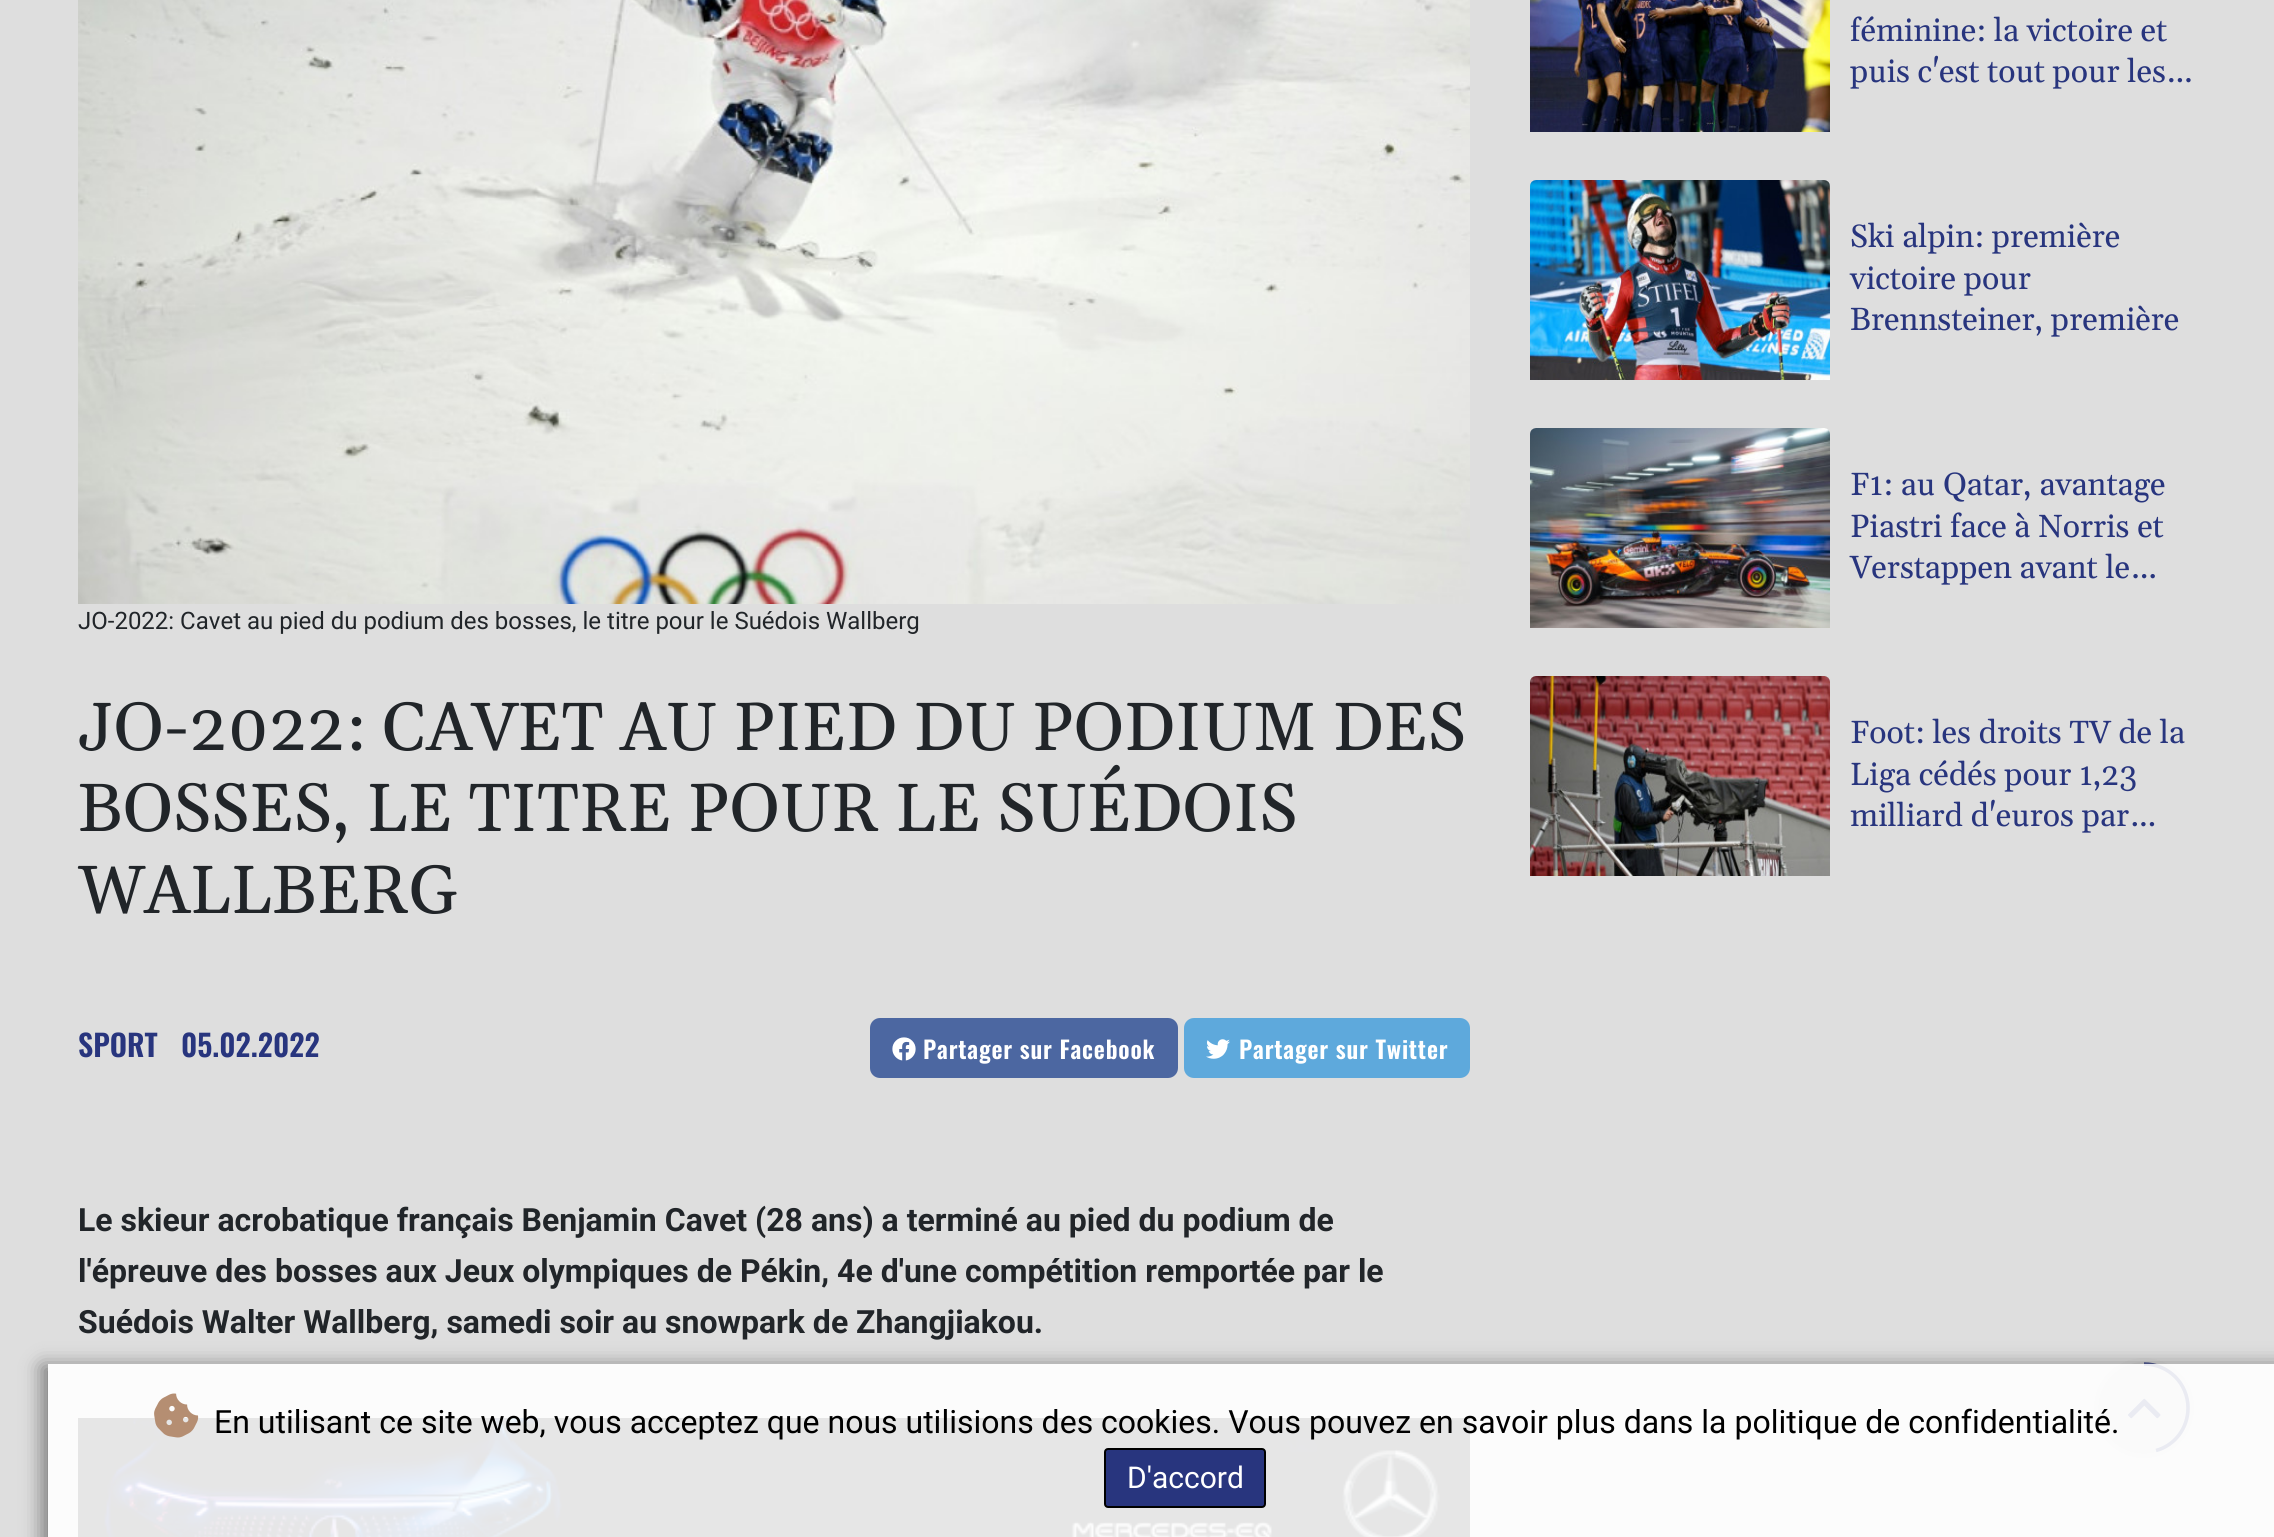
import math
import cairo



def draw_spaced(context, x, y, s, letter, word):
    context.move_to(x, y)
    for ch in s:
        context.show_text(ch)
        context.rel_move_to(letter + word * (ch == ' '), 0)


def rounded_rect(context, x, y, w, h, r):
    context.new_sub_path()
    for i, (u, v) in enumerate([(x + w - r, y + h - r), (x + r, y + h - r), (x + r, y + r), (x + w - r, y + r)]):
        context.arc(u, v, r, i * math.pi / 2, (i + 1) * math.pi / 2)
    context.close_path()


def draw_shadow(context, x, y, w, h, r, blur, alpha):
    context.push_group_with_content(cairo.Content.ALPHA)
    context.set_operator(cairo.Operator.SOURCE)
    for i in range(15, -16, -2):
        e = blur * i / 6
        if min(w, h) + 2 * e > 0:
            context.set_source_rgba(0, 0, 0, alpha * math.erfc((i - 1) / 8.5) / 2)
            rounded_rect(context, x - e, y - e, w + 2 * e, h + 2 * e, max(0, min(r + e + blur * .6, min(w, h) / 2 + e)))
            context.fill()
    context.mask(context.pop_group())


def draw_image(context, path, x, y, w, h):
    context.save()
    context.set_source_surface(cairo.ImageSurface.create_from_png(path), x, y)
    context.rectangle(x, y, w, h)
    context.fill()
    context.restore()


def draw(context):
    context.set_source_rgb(222 / 255, 222 / 255, 222 / 255)
    context.paint()
    draw_image(context, "images/1.png", 1530, 0, 300, 132)
    draw_image(context, "images/2.png", 1530, 180, 300, 200)
    draw_image(context, "images/3.png", 1530, 428, 300, 200)
    draw_image(context, "images/4.png", 1530, 676, 300, 200)
    draw_image(context, "images/5.png", 78, 0, 1392, 604)
    context.set_source_rgb(76 / 255, 103 / 255, 161 / 255)
    rounded_rect(context, 870, 1018, 308, 60, 10)
    context.fill()
    draw_image(context, "images/6.png", 892, 1037, 24, 24)
    context.set_source_rgb(94 / 255, 169 / 255, 220 / 255)
    rounded_rect(context, 1184, 1018, 286, 60, 10)
    context.fill()
    draw_image(context, "images/7.png", 1206, 1039, 24, 20)
    draw_image(context, "images/8.png", 78, 1418, 1392, 119)
    context.set_source_rgb(208 / 255, 208 / 255, 208 / 255)
    context.arc(2144, 1408, 50, 0, 2 * math.pi)
    context.fill()
    context.arc(2144, 1408, 48, 0, 2 * math.pi)
    context.set_source_rgba(1, 1, 1, 0.2)
    context.set_line_width(4)
    context.stroke()
    context.new_path()
    context.move_to(2144, 1364)
    context.curve_to(2168.5, 1364, 2188, 1383.5, 2188, 1408)
    context.curve_to(2188, 1428.5, 2174.5, 1445.5, 2156, 1450.5)
    context.set_source_rgb(40 / 255, 53 / 255, 126 / 255)
    context.set_line_width(3.6)
    context.stroke()
    draw_image(context, "images/9.png", 2128, 1398, 33, 21)
    context.save()
    context.set_fill_rule(cairo.FillRule.EVEN_ODD)
    context.new_path()
    context.move_to(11, 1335)
    context.line_to(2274, 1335)
    context.line_to(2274, 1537)
    context.line_to(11, 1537)
    context.close_path()
    context.move_to(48, 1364)
    context.line_to(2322, 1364)
    context.line_to(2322, 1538)
    context.line_to(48, 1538)
    context.close_path()
    context.clip()
    context.set_source_rgb(121 / 255, 121 / 255, 121 / 255)
    draw_shadow(context, 42, 1366, 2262, 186, 0, 10, 1)
    context.restore()
    context.set_source_rgba(1, 1, 1, 0.9)
    context.rectangle(48, 1364, 2226, 173)
    context.fill()
    draw_image(context, "images/10.png", 154, 1393, 45, 45)
    context.set_source_rgb(40 / 255, 53 / 255, 126 / 255)
    rounded_rect(context, 1105, 1449, 160, 58, 3)
    context.fill_preserve()
    context.set_source_rgb(0, 0, 0)
    context.set_line_width(2)
    context.stroke()
    context.select_font_face("Gelasio")
    context.set_font_size(32)
    context.set_source_rgb(40 / 255, 53 / 255, 126 / 255)
    context.move_to(1850, 41)
    context.show_text("féminine: la victoire et")
    context.move_to(1850, 82)
    context.show_text("puis c'est tout pour les…")
    context.move_to(1850, 247)
    context.show_text("Ski alpin: première")
    context.move_to(1850, 289)
    context.show_text("victoire pour")
    context.move_to(1850, 330)
    context.show_text("Brennsteiner, première")
    context.move_to(1850, 495)
    context.show_text("F1: au Qatar, avantage")
    context.move_to(1850, 537)
    context.show_text("Piastri face à Norris et")
    context.move_to(1850, 578)
    context.show_text("Verstappen avant le…")
    context.move_to(1850, 743)
    context.show_text("Foot: les droits TV de la")
    context.move_to(1850, 785)
    context.show_text("Liga cédés pour 1,23")
    context.move_to(1850, 826)
    context.show_text("milliard d'euros par…")
    context.select_font_face("Roboto")
    context.set_font_size(24)
    context.set_source_rgb(33 / 255, 37 / 255, 41 / 255)
    context.move_to(78, 629)
    context.show_text("JO-2022: Cavet au pied du podium des bosses, le titre pour le Suédois Wallberg")
    context.select_font_face("Gelasio")
    context.set_font_size(68)
    context.move_to(78, 750)
    context.show_text("JO-2022: CAVET AU PIED DU PODIUM DES")
    context.move_to(78, 831)
    context.show_text("BOSSES, LE TITRE POUR LE SUÉDOIS")
    context.move_to(78, 913)
    context.show_text("WALLBERG")
    context.select_font_face("Oswald SemiBold")
    context.set_font_size(30)
    context.set_source_rgb(40 / 255, 53 / 255, 126 / 255)
    context.move_to(78, 1057)
    context.show_text("SPORT")
    context.move_to(181, 1057)
    context.show_text("05.02.2022")
    context.set_font_size(24)
    context.set_source_rgb(1, 1, 1)
    draw_spaced(context, 923, 1059, "Partager sur Facebook", 0.8, 0)
    draw_spaced(context, 1239, 1059, "Partager sur Twitter", 0.8, 0)
    context.select_font_face("Roboto", cairo.FontSlant.NORMAL, cairo.FontWeight.BOLD)
    context.set_font_size(32)
    context.set_source_rgb(33 / 255, 37 / 255, 41 / 255)
    context.move_to(78, 1231)
    context.show_text("Le skieur acrobatique français Benjamin Cavet (28 ans) a terminé au pied du podium de")
    context.move_to(78, 1282)
    context.show_text("l'épreuve des bosses aux Jeux olympiques de Pékin, 4e d'une compétition remportée par le")
    context.move_to(78, 1333)
    context.show_text("Suédois Walter Wallberg, samedi soir au snowpark de Zhangjiakou.")
    context.select_font_face("Roboto")
    context.set_source_rgb(0, 0, 0)
    context.move_to(214, 1433)
    context.show_text("En utilisant ce site web, vous acceptez que nous utilisions des cookies. Vous pouvez en savoir plus dans la politique de confidentialité.")
    context.set_font_size(30)
    context.set_source_rgb(1, 1, 1)
    context.move_to(1127, 1488)
    context.show_text("D'accord")


surface = cairo.ImageSurface(cairo.Format.RGB24, 2274, 1537)
context = cairo.Context(surface)
options = cairo.FontOptions()
options.set_hint_metrics(cairo.HintMetrics.OFF)
options.set_hint_style(cairo.HintStyle.NONE)
context.set_font_options(options)
context.set_miter_limit(4)
draw(context)
surface.write_to_png("out.png")
